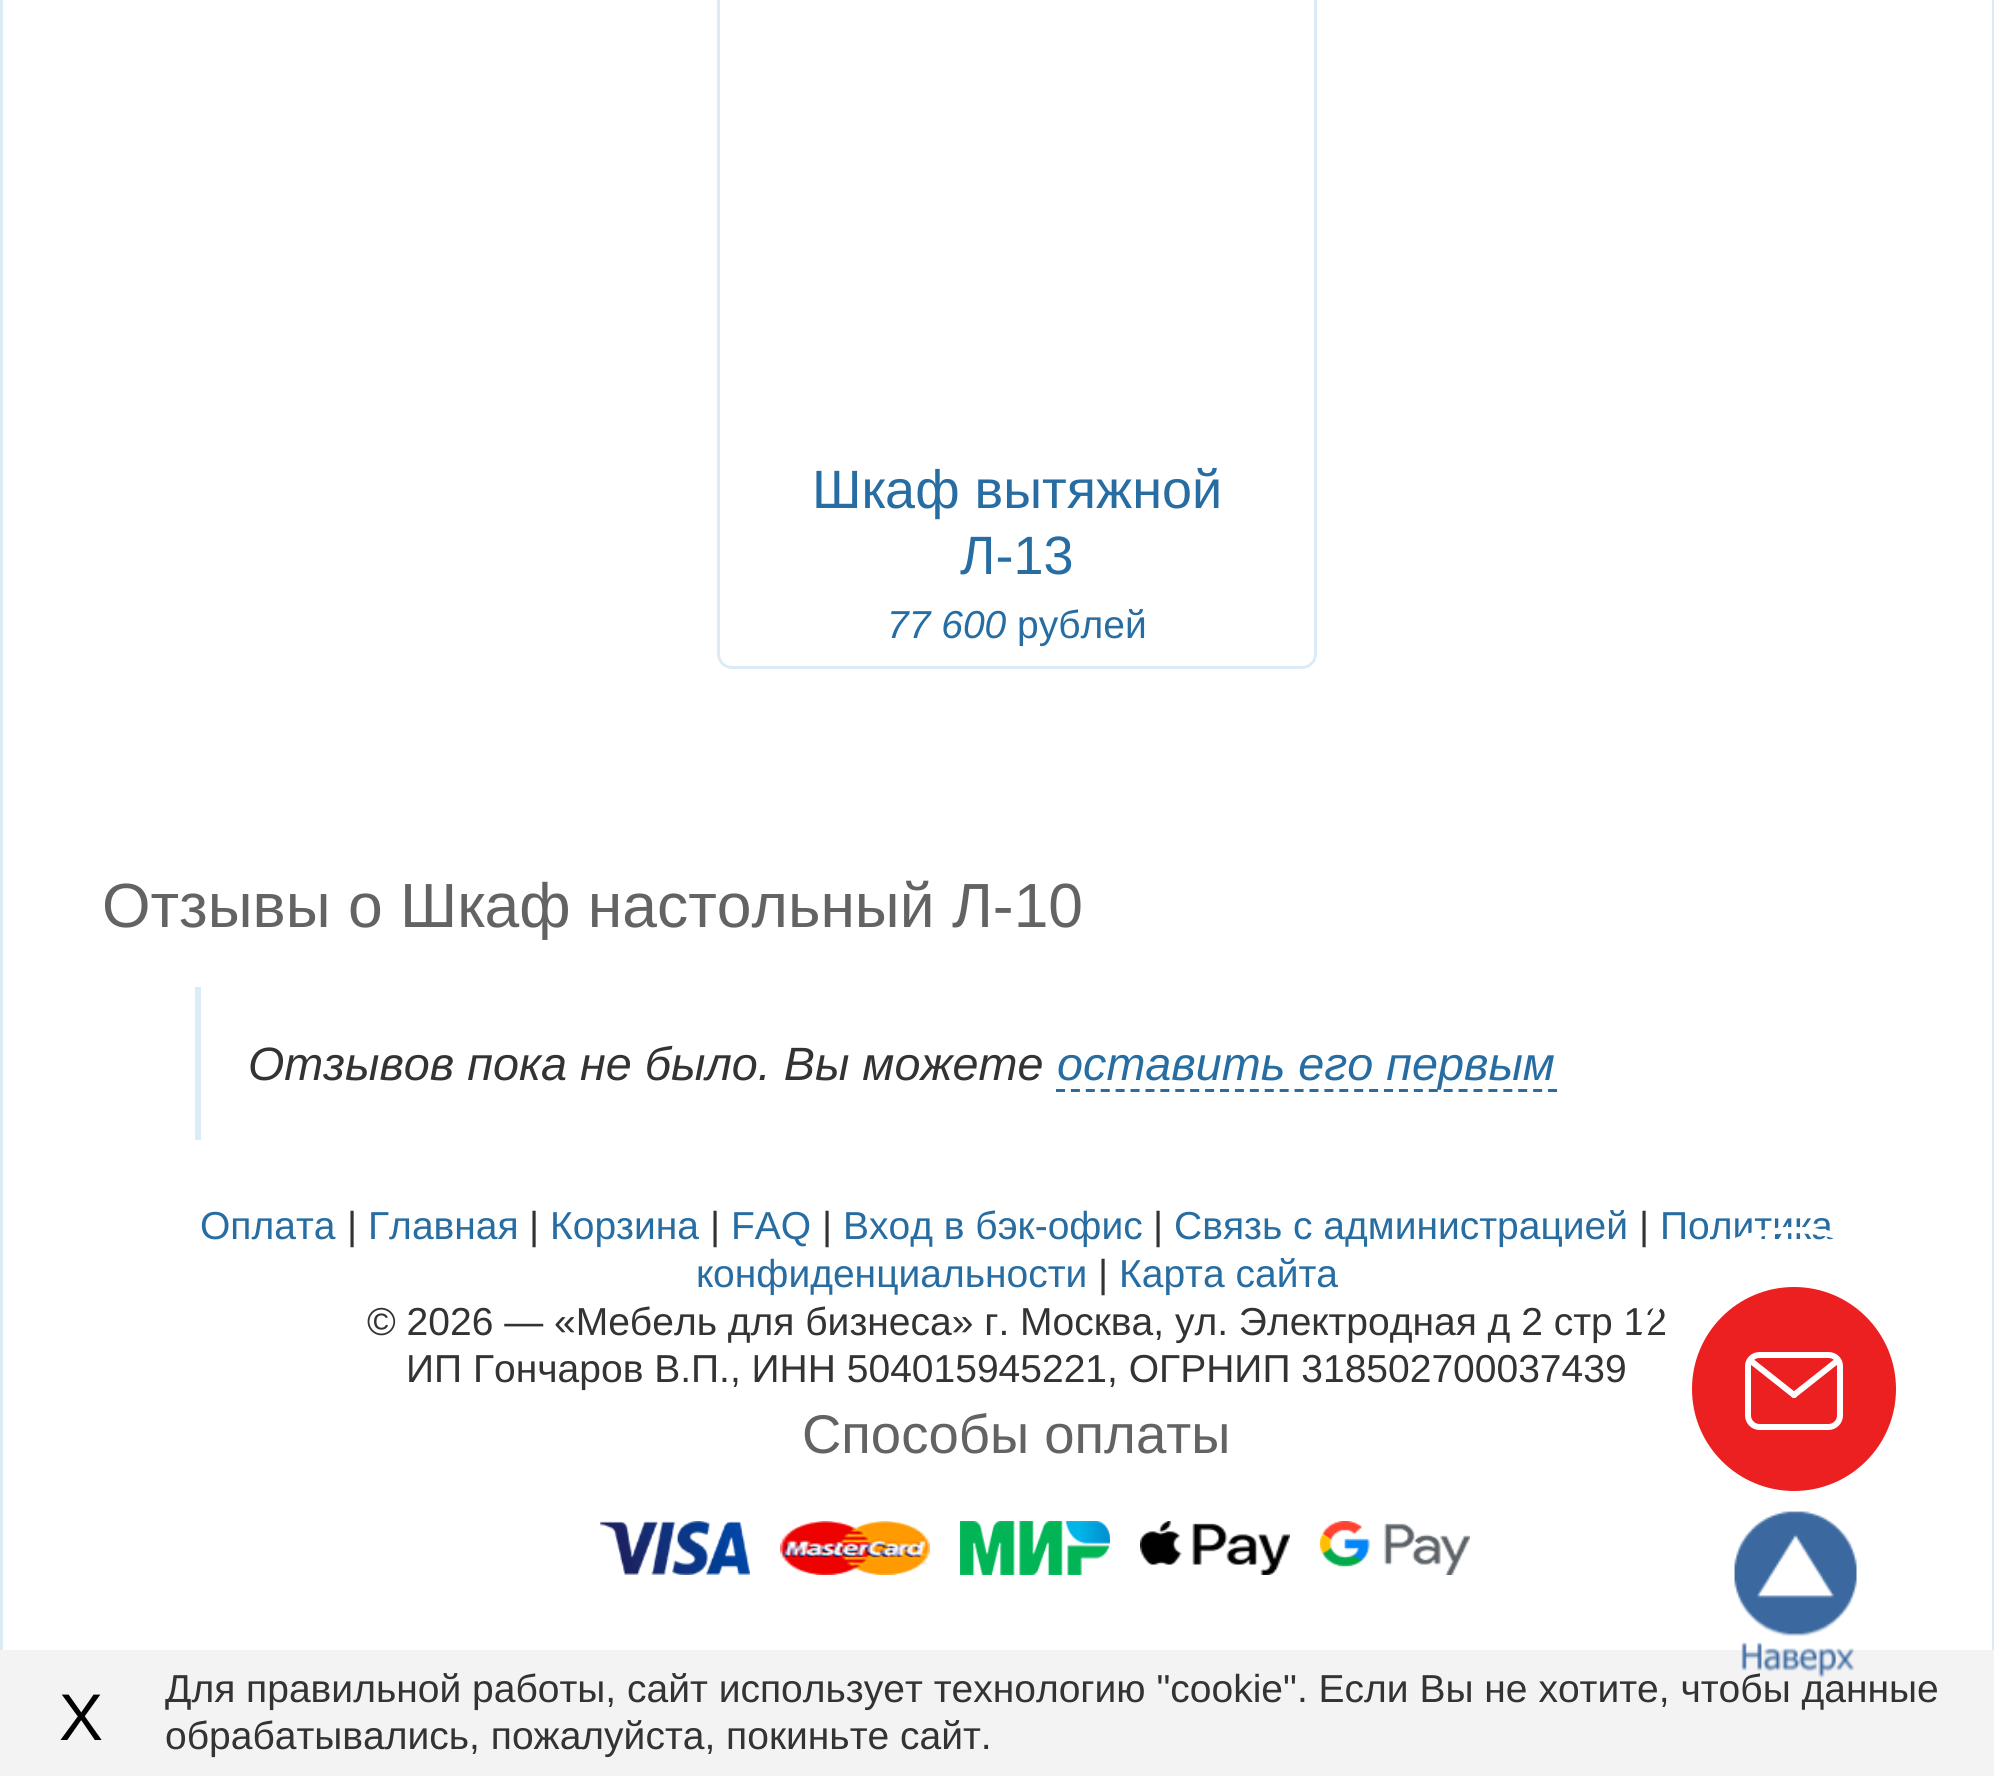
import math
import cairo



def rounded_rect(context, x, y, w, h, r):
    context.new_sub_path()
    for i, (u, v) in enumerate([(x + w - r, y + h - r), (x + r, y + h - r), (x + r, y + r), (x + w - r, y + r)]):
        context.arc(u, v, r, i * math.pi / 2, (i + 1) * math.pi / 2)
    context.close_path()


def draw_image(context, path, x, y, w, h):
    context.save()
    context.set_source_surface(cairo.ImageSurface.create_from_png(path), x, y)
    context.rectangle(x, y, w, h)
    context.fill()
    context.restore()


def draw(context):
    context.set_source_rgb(1, 1, 1)
    context.paint()
    draw_image(context, "images/1.png", 3, 0, 1177, 1650)
    context.set_source_rgb(220 / 255, 236 / 255, 247 / 255)
    context.rectangle(1992, 0, 2, 1650)
    context.fill()
    context.rectangle(0, 0, 3, 1650)
    context.fill()
    rounded_rect(context, 718.5, -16.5, 597, 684, 13.5)
    context.set_line_width(3)
    context.stroke()
    context.rectangle(195, 987, 6, 153)
    context.fill()
    context.new_path()
    context.move_to(1056, 1090.5)
    context.line_to(1557, 1090.5)
    context.set_source_rgb(40 / 255, 109 / 255, 162 / 255)
    context.set_dash([9, 5.91])
    context.stroke()
    draw_image(context, "images/2.png", 600, 1521, 150, 54)
    draw_image(context, "images/3.png", 780, 1521, 150, 54)
    draw_image(context, "images/4.png", 960, 1521, 150, 54)
    draw_image(context, "images/5.png", 1140, 1521, 150, 54)
    draw_image(context, "images/6.png", 1320, 1521, 150, 54)
    context.set_source_rgb(236 / 255, 32 / 255, 32 / 255)
    context.arc(1794, 1389, 102, 0, 2 * math.pi)
    context.fill()
    context.new_path()
    context.move_to(1828.5, 1427)
    context.line_to(1759.5, 1427)
    context.curve_to(1753, 1427, 1748, 1421.5, 1748, 1415.5)
    context.line_to(1748, 1366)
    context.curve_to(1748, 1360, 1753, 1355, 1759.5, 1355)
    context.line_to(1828.5, 1355)
    context.curve_to(1835, 1355, 1840, 1360, 1840, 1366)
    context.line_to(1840, 1415.5)
    context.curve_to(1840, 1421.5, 1835, 1427, 1828.5, 1427)
    context.close_path()
    context.set_source_rgb(1, 1, 1)
    context.set_line_width(6)
    context.set_line_cap(cairo.LineCap.ROUND)
    context.set_dash([])
    context.stroke()
    context.new_path()
    context.move_to(1794, 1395)
    context.line_to(1751, 1361)
    context.set_line_join(cairo.LineJoin.ROUND)
    context.stroke()
    context.new_path()
    context.move_to(1837, 1361)
    context.line_to(1794, 1395)
    context.stroke()
    context.set_source_rgb(243 / 255, 243 / 255, 243 / 255)
    context.rectangle(0, 1650, 1994, 126)
    context.fill()
    context.select_font_face("Liberation Sans")
    context.set_font_size(54)
    context.set_source_rgb(40 / 255, 109 / 255, 162 / 255)
    context.move_to(812, 508)
    context.show_text("Шкаф вытяжной")
    context.move_to(960, 574)
    context.show_text("Л-13")
    context.select_font_face("Liberation Sans", cairo.FontSlant.ITALIC)
    context.set_font_size(39)
    context.move_to(887, 638)
    context.show_text("77 600")
    context.select_font_face("Liberation Sans")
    context.move_to(1017, 638)
    context.show_text("рублей")
    context.set_font_size(62.4)
    context.set_source_rgb(99 / 255, 99 / 255, 99 / 255)
    context.move_to(102, 927)
    context.show_text("Отзывы о Шкаф настольный Л-10")
    context.select_font_face("Liberation Sans", cairo.FontSlant.ITALIC)
    context.set_font_size(46.75)
    context.set_source_rgb(51 / 255, 51 / 255, 51 / 255)
    context.move_to(248, 1080)
    context.show_text("Отзывов пока не было. Вы можете")
    context.set_source_rgb(40 / 255, 109 / 255, 162 / 255)
    context.move_to(1057, 1080)
    context.show_text("оставить его первым")
    context.select_font_face("Liberation Sans")
    context.set_font_size(39)
    context.move_to(200, 1239)
    context.show_text("Оплата")
    context.set_source_rgb(51 / 255, 51 / 255, 51 / 255)
    context.move_to(347, 1239)
    context.show_text("|")
    context.set_source_rgb(40 / 255, 109 / 255, 162 / 255)
    context.move_to(368, 1239)
    context.show_text("Главная")
    context.set_source_rgb(51 / 255, 51 / 255, 51 / 255)
    context.move_to(529, 1239)
    context.show_text("|")
    context.set_source_rgb(40 / 255, 109 / 255, 162 / 255)
    context.move_to(550, 1239)
    context.show_text("Корзина")
    context.set_source_rgb(51 / 255, 51 / 255, 51 / 255)
    context.move_to(710, 1239)
    context.show_text("|")
    context.set_source_rgb(40 / 255, 109 / 255, 162 / 255)
    context.move_to(731, 1239)
    context.show_text("FAQ")
    context.set_source_rgb(51 / 255, 51 / 255, 51 / 255)
    context.move_to(822, 1239)
    context.show_text("|")
    context.set_source_rgb(40 / 255, 109 / 255, 162 / 255)
    context.move_to(843, 1239)
    context.show_text("Вход в бэк-офис")
    context.set_source_rgb(51 / 255, 51 / 255, 51 / 255)
    context.move_to(1153, 1239)
    context.show_text("|")
    context.set_source_rgb(40 / 255, 109 / 255, 162 / 255)
    context.move_to(1174, 1239)
    context.show_text("Связь с администрацией")
    context.set_source_rgb(51 / 255, 51 / 255, 51 / 255)
    context.move_to(1639, 1239)
    context.show_text("|")
    context.set_source_rgb(40 / 255, 109 / 255, 162 / 255)
    context.move_to(1660, 1239)
    context.show_text("Политика")
    context.move_to(696, 1287)
    context.show_text("конфиденциальности")
    context.set_source_rgb(51 / 255, 51 / 255, 51 / 255)
    context.move_to(1098, 1287)
    context.show_text("|")
    context.set_source_rgb(40 / 255, 109 / 255, 162 / 255)
    context.move_to(1119, 1287)
    context.show_text("Карта сайта")
    context.set_source_rgb(51 / 255, 51 / 255, 51 / 255)
    context.move_to(367, 1335)
    context.show_text("© 2026 — «Мебель для бизнеса» г. Москва, ул. Электродная д 2 стр 12")
    context.move_to(406, 1382)
    context.show_text("ИП Гончаров В.П., ИНН 504015945221, ОГРНИП 318502700037439")
    context.set_font_size(54.5)
    context.set_source_rgb(99 / 255, 99 / 255, 99 / 255)
    context.move_to(802, 1453)
    context.show_text("Способы оплаты")
    context.new_path()
    context.arc(1794, 1389, 159, 0, 2 * math.pi)
    context.set_source_rgb(1, 1, 1)
    context.set_line_cap(cairo.LineCap.BUTT)
    context.set_line_join(cairo.LineJoin.MITER)
    context.stroke()
    context.arc(1794, 1389, 159, 0, 2 * math.pi)
    context.stroke()
    context.set_font_size(66)
    context.set_source_rgb(0, 0, 0)
    context.move_to(59, 1740)
    context.show_text("X")
    context.set_font_size(39)
    context.set_source_rgb(51 / 255, 51 / 255, 51 / 255)
    context.move_to(165, 1702)
    context.show_text("Для правильной работы, сайт использует технологию \"cookie\". Если Вы не хотите, чтобы данные")
    draw_image(context, "images/7.png", 1734, 1511, 123, 167)
    context.move_to(165, 1749)
    context.show_text("обрабатывались, пожалуйста, покиньте сайт.")


surface = cairo.ImageSurface(cairo.Format.RGB24, 1994, 1776)
context = cairo.Context(surface)
options = cairo.FontOptions()
options.set_hint_metrics(cairo.HintMetrics.OFF)
options.set_hint_style(cairo.HintStyle.NONE)
context.set_font_options(options)
context.set_miter_limit(4)
draw(context)
surface.write_to_png("out.png")
